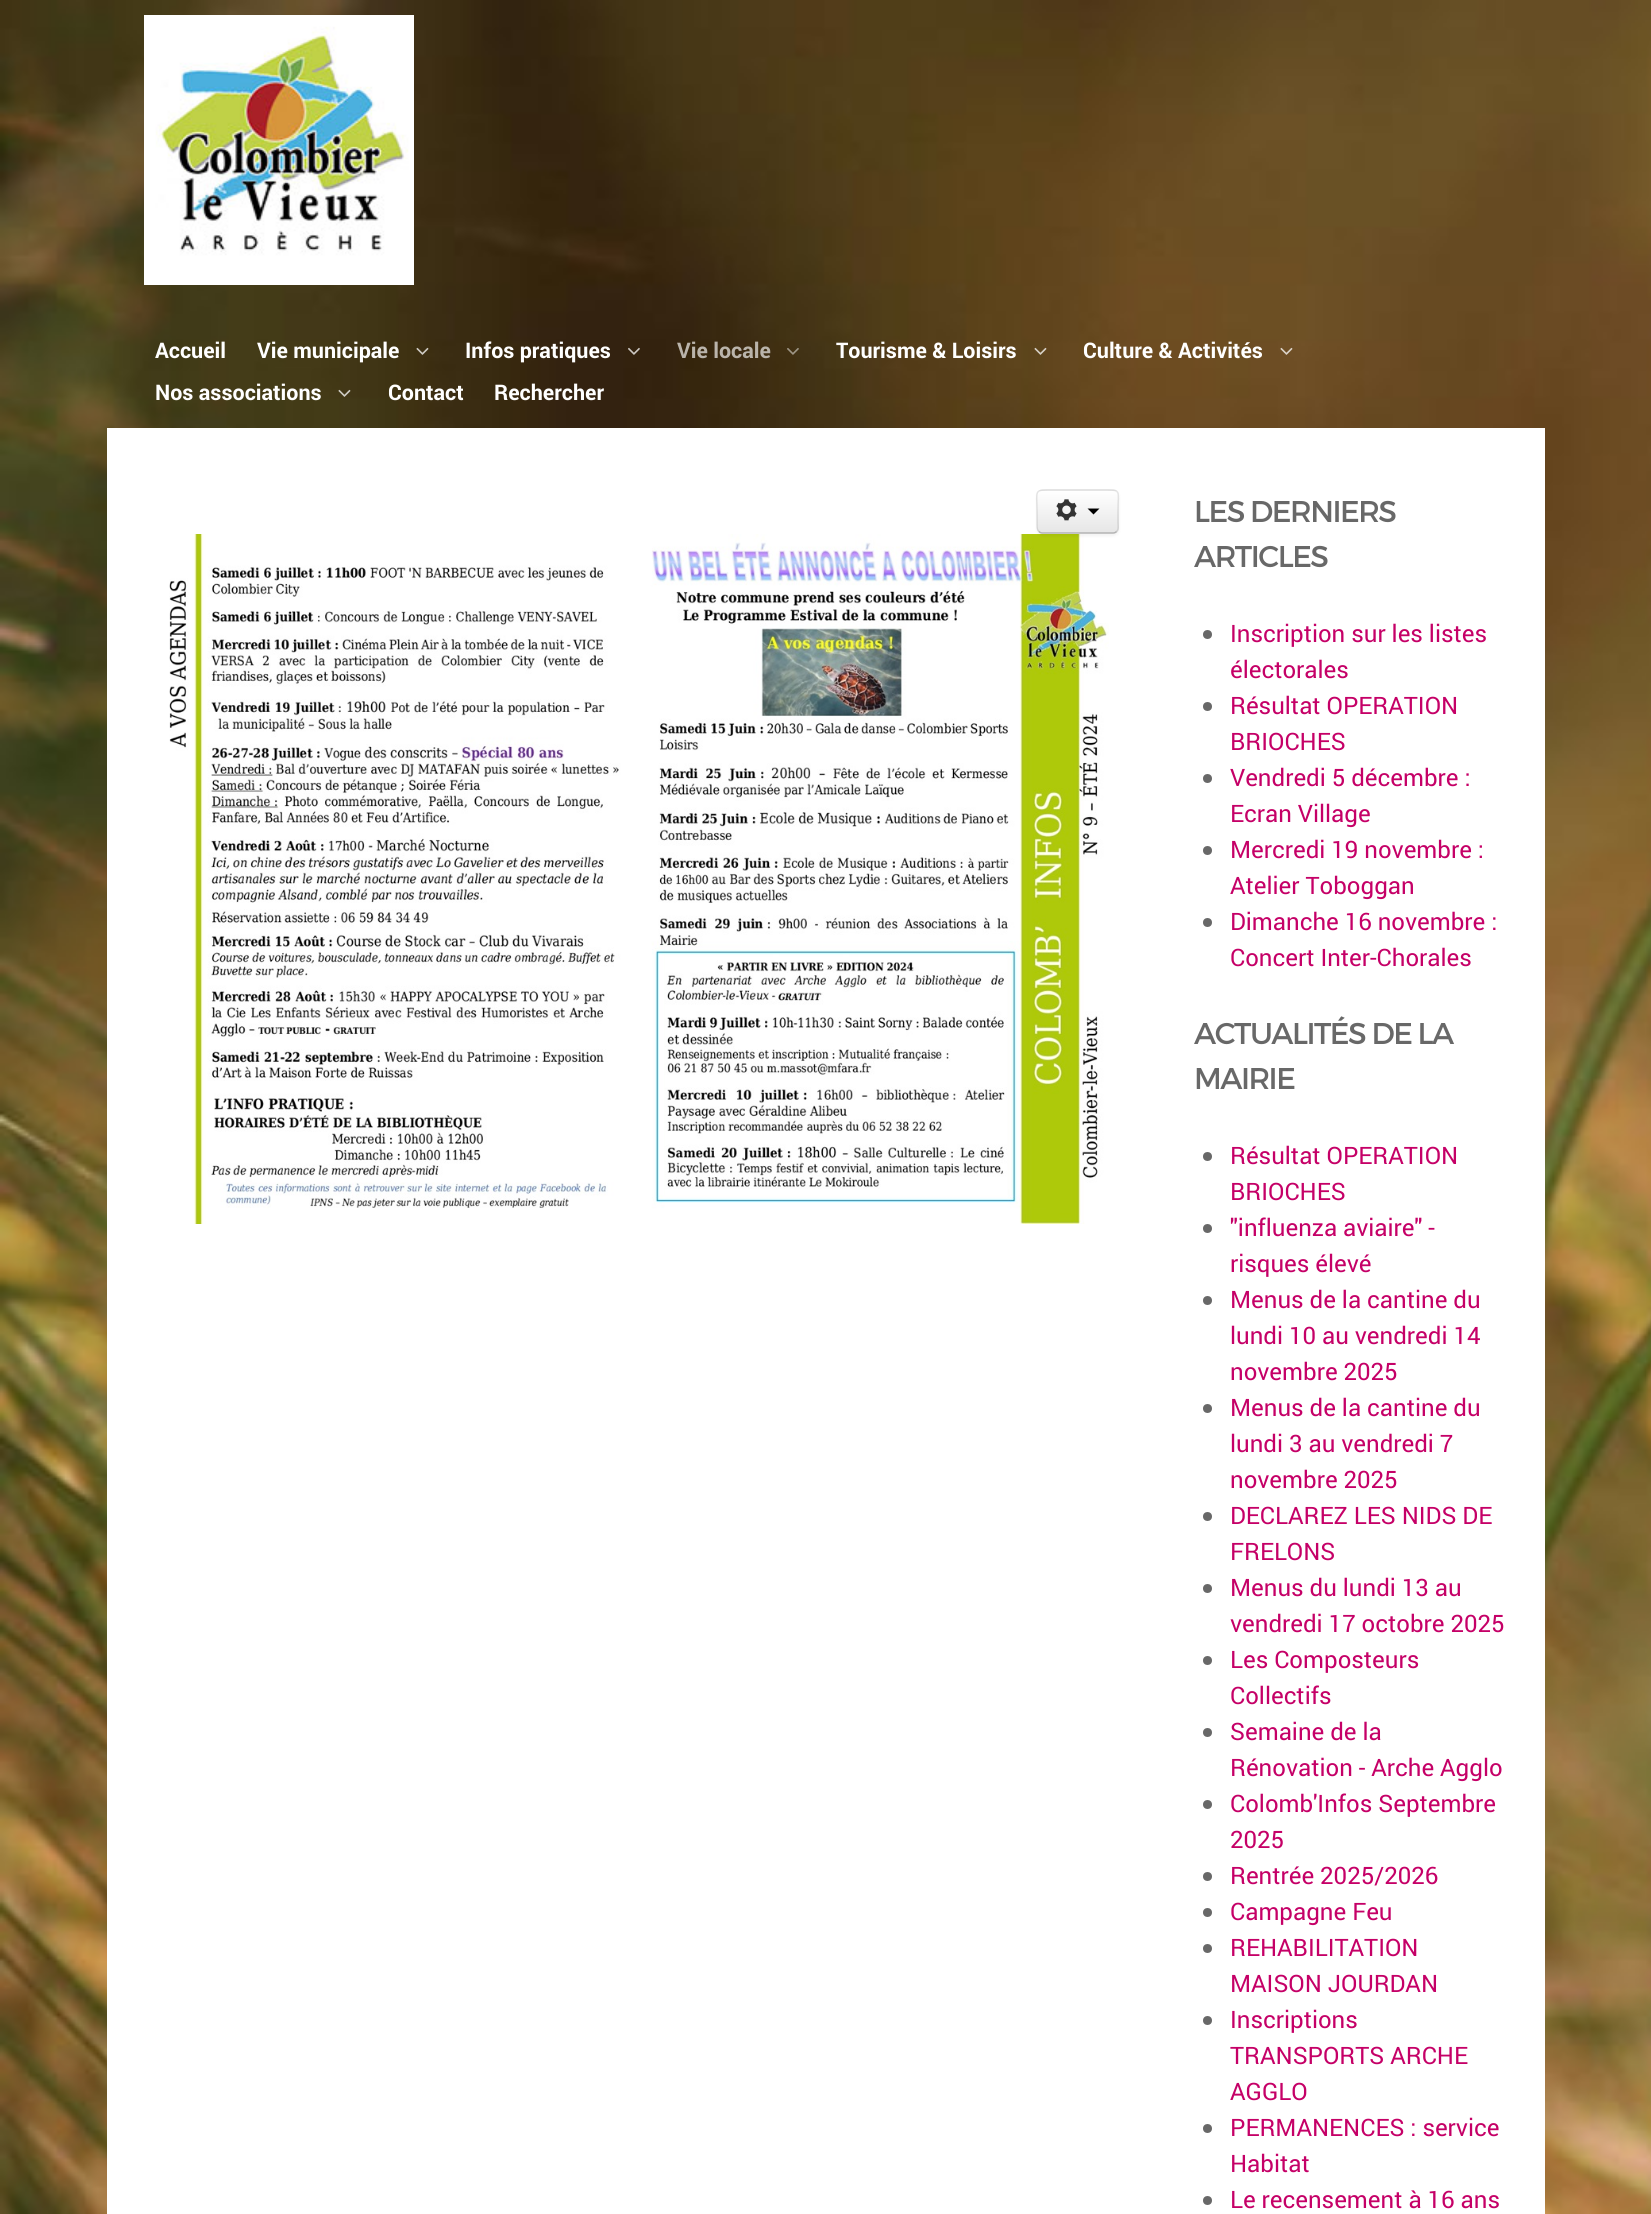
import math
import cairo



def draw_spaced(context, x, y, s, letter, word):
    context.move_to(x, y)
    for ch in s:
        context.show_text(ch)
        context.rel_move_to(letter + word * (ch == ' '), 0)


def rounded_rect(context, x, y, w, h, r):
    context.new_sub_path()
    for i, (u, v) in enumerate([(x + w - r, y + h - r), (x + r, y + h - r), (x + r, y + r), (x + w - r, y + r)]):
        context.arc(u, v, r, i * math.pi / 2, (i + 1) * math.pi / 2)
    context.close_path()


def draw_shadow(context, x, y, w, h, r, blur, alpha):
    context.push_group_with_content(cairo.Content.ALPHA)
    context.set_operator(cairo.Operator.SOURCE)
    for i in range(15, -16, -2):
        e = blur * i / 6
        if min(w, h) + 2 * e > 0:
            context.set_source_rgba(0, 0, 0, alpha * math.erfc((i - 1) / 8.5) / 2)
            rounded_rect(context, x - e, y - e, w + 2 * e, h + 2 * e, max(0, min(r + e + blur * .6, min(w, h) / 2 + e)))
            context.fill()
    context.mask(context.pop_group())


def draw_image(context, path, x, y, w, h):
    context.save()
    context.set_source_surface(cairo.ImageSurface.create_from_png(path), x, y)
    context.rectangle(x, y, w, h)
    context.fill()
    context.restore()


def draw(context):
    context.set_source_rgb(1, 1, 1)
    context.paint()
    draw_image(context, "images/1.png", 0, 0, 1651, 2214)
    draw_image(context, "images/2.png", 144, 15, 270, 270)
    draw_image(context, "images/3.png", 416, 347, 13, 8)
    draw_image(context, "images/4.png", 628, 347, 12, 8)
    draw_image(context, "images/5.png", 787, 348, 12, 7)
    draw_image(context, "images/6.png", 1034, 347, 13, 8)
    draw_image(context, "images/7.png", 1280, 347, 13, 8)
    draw_image(context, "images/8.png", 338, 389, 13, 8)
    context.set_source_rgb(1, 1, 1)
    context.rectangle(107, 428, 1438, 1786)
    context.fill()
    draw_image(context, "images/10.png", 169, 534, 940, 690)
    context.set_source_rgb(0, 0, 0)
    draw_shadow(context, 1037, 491, 82, 45, 6, 1.5, 0.05)
    context.set_source_rgb(245 / 255, 245 / 255, 245 / 255)
    rounded_rect(context, 1037, 489, 82, 45, 6)
    context.fill()
    context.save()
    rounded_rect(context, 1037, 489, 82, 45, 6)
    context.clip()
    gradient = cairo.LinearGradient(1078, 491, 1078, 533)
    gradient.add_color_stop_rgba(0, 1, 1, 1, 1)
    gradient.add_color_stop_rgba(1, 230 / 255, 230 / 255, 230 / 255, 1)
    context.set_source(gradient)
    context.rectangle(1037, 491, 82, 42)
    context.fill()
    context.restore()
    context.new_path()
    context.move_to(1116.5, 531.5)
    context.curve_to(1115.5, 532.5, 1114.5, 533, 1113, 533)
    context.line_to(1042.5, 533)
    context.curve_to(1041, 533, 1040, 532.5, 1039, 531.5)
    context.set_source_rgb(179 / 255, 179 / 255, 179 / 255)
    context.set_line_width(1.5)
    context.stroke()
    context.new_path()
    context.move_to(1039, 531.5)
    context.curve_to(1036.5, 529.5, 1037, 525.5, 1037, 522.5)
    context.line_to(1037, 511.5)
    context.curve_to(1037, 489, 1033, 490, 1054, 490)
    context.line_to(1101, 490)
    context.curve_to(1122.5, 490, 1118, 489, 1118, 511.5)
    context.line_to(1118, 522.5)
    context.curve_to(1118, 525.5, 1119, 529.5, 1116.5, 531.5)
    context.set_source_rgba(0, 0, 0, 0.1)
    context.stroke()
    draw_image(context, "images/9.png", 1056, 499, 21, 22)
    context.set_source_rgb(0, 0, 0)
    context.new_path()
    context.move_to(1087.5, 508.5)
    context.line_to(1099.5, 508.5)
    context.line_to(1093.5, 514.5)
    context.close_path()
    context.fill()
    context.set_source_rgb(104 / 255, 104 / 255, 104 / 255)
    context.arc(1207.5, 634.5, 4.5, 0, 2 * math.pi)
    context.fill()
    context.arc(1207.5, 706.5, 4.5, 0, 2 * math.pi)
    context.fill()
    context.arc(1207.5, 778.5, 4.5, 0, 2 * math.pi)
    context.fill()
    context.arc(1207.5, 850.5, 4.5, 0, 2 * math.pi)
    context.fill()
    context.arc(1207.5, 922.5, 4.5, 0, 2 * math.pi)
    context.fill()
    context.arc(1207.5, 1156.5, 4.5, 0, 2 * math.pi)
    context.fill()
    context.arc(1207.5, 1228.5, 4.5, 0, 2 * math.pi)
    context.fill()
    context.arc(1207.5, 1300.5, 4.5, 0, 2 * math.pi)
    context.fill()
    context.arc(1207.5, 1408.5, 4.5, 0, 2 * math.pi)
    context.fill()
    context.arc(1207.5, 1516.5, 4.5, 0, 2 * math.pi)
    context.fill()
    context.arc(1207.5, 1588.5, 4.5, 0, 2 * math.pi)
    context.fill()
    context.arc(1207.5, 1660.5, 4.5, 0, 2 * math.pi)
    context.fill()
    context.arc(1207.5, 1732.5, 4.5, 0, 2 * math.pi)
    context.fill()
    context.arc(1207.5, 1804.5, 4.5, 0, 2 * math.pi)
    context.fill()
    context.arc(1207.5, 1876.5, 4.5, 0, 2 * math.pi)
    context.fill()
    context.arc(1207.5, 1912.5, 4.5, 0, 2 * math.pi)
    context.fill()
    context.arc(1207.5, 1948.5, 4.5, 0, 2 * math.pi)
    context.fill()
    context.arc(1207.5, 2020.5, 4.5, 0, 2 * math.pi)
    context.fill()
    context.arc(1207.5, 2128.5, 4.5, 0, 2 * math.pi)
    context.fill()
    context.arc(1207.5, 2200.5, 4.5, 0, 2 * math.pi)
    context.fill()
    context.select_font_face("roboto", cairo.FontSlant.NORMAL, cairo.FontWeight.BOLD)
    context.set_font_size(21.5)
    context.set_source_rgb(1, 1, 1)
    context.move_to(155, 358)
    context.show_text("Accueil")
    context.move_to(257, 358)
    context.show_text("Vie municipale")
    context.move_to(465, 358)
    context.show_text("Infos pratiques")
    context.set_source_rgb(186 / 255, 180 / 255, 171 / 255)
    context.move_to(677, 358)
    context.show_text("Vie locale")
    context.set_source_rgb(1, 1, 1)
    context.move_to(836, 358)
    context.show_text("Tourisme & Loisirs")
    context.move_to(1083, 358)
    context.show_text("Culture & Activités")
    context.move_to(155, 400)
    context.show_text("Nos associations")
    context.move_to(388, 400)
    context.show_text("Contact")
    context.move_to(494, 400)
    context.show_text("Rechercher")
    context.select_font_face("Montserrat")
    context.set_font_size(30)
    context.set_source_rgb(104 / 255, 104 / 255, 104 / 255)
    draw_spaced(context, 1194, 522, "LES DERNIERS", -1.5, 0)
    draw_spaced(context, 1194, 567, "ARTICLES", -1.5, 0)
    context.select_font_face("roboto")
    context.set_font_size(24)
    context.set_source_rgb(197 / 255, 0, 103 / 255)
    context.move_to(1230, 642)
    context.show_text("Inscription sur les listes")
    context.move_to(1230, 678)
    context.show_text("électorales")
    context.move_to(1230, 714)
    context.show_text("Résultat OPERATION")
    context.move_to(1230, 750)
    context.show_text("BRIOCHES")
    context.move_to(1230, 786)
    context.show_text("Vendredi 5 décembre :")
    context.move_to(1230, 822)
    context.show_text("Ecran Village")
    context.move_to(1230, 858)
    context.show_text("Mercredi 19 novembre :")
    context.move_to(1230, 894)
    context.show_text("Atelier Toboggan")
    context.move_to(1230, 930)
    context.show_text("Dimanche 16 novembre :")
    context.move_to(1230, 966)
    context.show_text("Concert Inter-Chorales")
    context.select_font_face("Montserrat")
    context.set_font_size(30)
    context.set_source_rgb(104 / 255, 104 / 255, 104 / 255)
    draw_spaced(context, 1194, 1044, "ACTUALITÉS DE LA", -1.5, 0)
    draw_spaced(context, 1194, 1089, "MAIRIE", -1.5, 0)
    context.select_font_face("roboto")
    context.set_font_size(24)
    context.set_source_rgb(197 / 255, 0, 103 / 255)
    context.move_to(1230, 1164)
    context.show_text("Résultat OPERATION")
    context.move_to(1230, 1200)
    context.show_text("BRIOCHES")
    context.move_to(1230, 1236)
    context.show_text("\"influenza aviaire\" -")
    context.move_to(1230, 1272)
    context.show_text("risques élevé")
    context.move_to(1230, 1308)
    context.show_text("Menus de la cantine du")
    context.move_to(1230, 1344)
    context.show_text("lundi 10 au vendredi 14")
    context.move_to(1230, 1380)
    context.show_text("novembre 2025")
    context.move_to(1230, 1416)
    context.show_text("Menus de la cantine du")
    context.move_to(1230, 1452)
    context.show_text("lundi 3 au vendredi 7")
    context.move_to(1230, 1488)
    context.show_text("novembre 2025")
    context.move_to(1230, 1524)
    context.show_text("DECLAREZ LES NIDS DE")
    context.move_to(1230, 1560)
    context.show_text("FRELONS")
    context.move_to(1230, 1596)
    context.show_text("Menus du lundi 13 au")
    context.move_to(1230, 1632)
    context.show_text("vendredi 17 octobre 2025")
    context.move_to(1230, 1668)
    context.show_text("Les Composteurs")
    context.move_to(1230, 1704)
    context.show_text("Collectifs")
    context.move_to(1230, 1740)
    context.show_text("Semaine de la")
    context.move_to(1230, 1776)
    context.show_text("Rénovation - Arche Agglo")
    context.move_to(1230, 1812)
    context.show_text("Colomb'Infos Septembre")
    context.move_to(1230, 1848)
    context.show_text("2025")
    context.move_to(1230, 1884)
    context.show_text("Rentrée 2025/2026")
    context.move_to(1230, 1920)
    context.show_text("Campagne Feu")
    context.move_to(1230, 1956)
    context.show_text("REHABILITATION")
    context.move_to(1230, 1992)
    context.show_text("MAISON JOURDAN")
    context.move_to(1230, 2028)
    context.show_text("Inscriptions")
    context.move_to(1230, 2064)
    context.show_text("TRANSPORTS ARCHE")
    context.move_to(1230, 2100)
    context.show_text("AGGLO")
    context.move_to(1230, 2136)
    context.show_text("PERMANENCES : service")
    context.move_to(1230, 2172)
    context.show_text("Habitat")
    context.move_to(1230, 2208)
    context.show_text("Le recensement à 16 ans")


surface = cairo.ImageSurface(cairo.Format.RGB24, 1651, 2214)
context = cairo.Context(surface)
options = cairo.FontOptions()
options.set_hint_metrics(cairo.HintMetrics.OFF)
options.set_hint_style(cairo.HintStyle.NONE)
context.set_font_options(options)
context.set_miter_limit(4)
draw(context)
surface.write_to_png("out.png")
